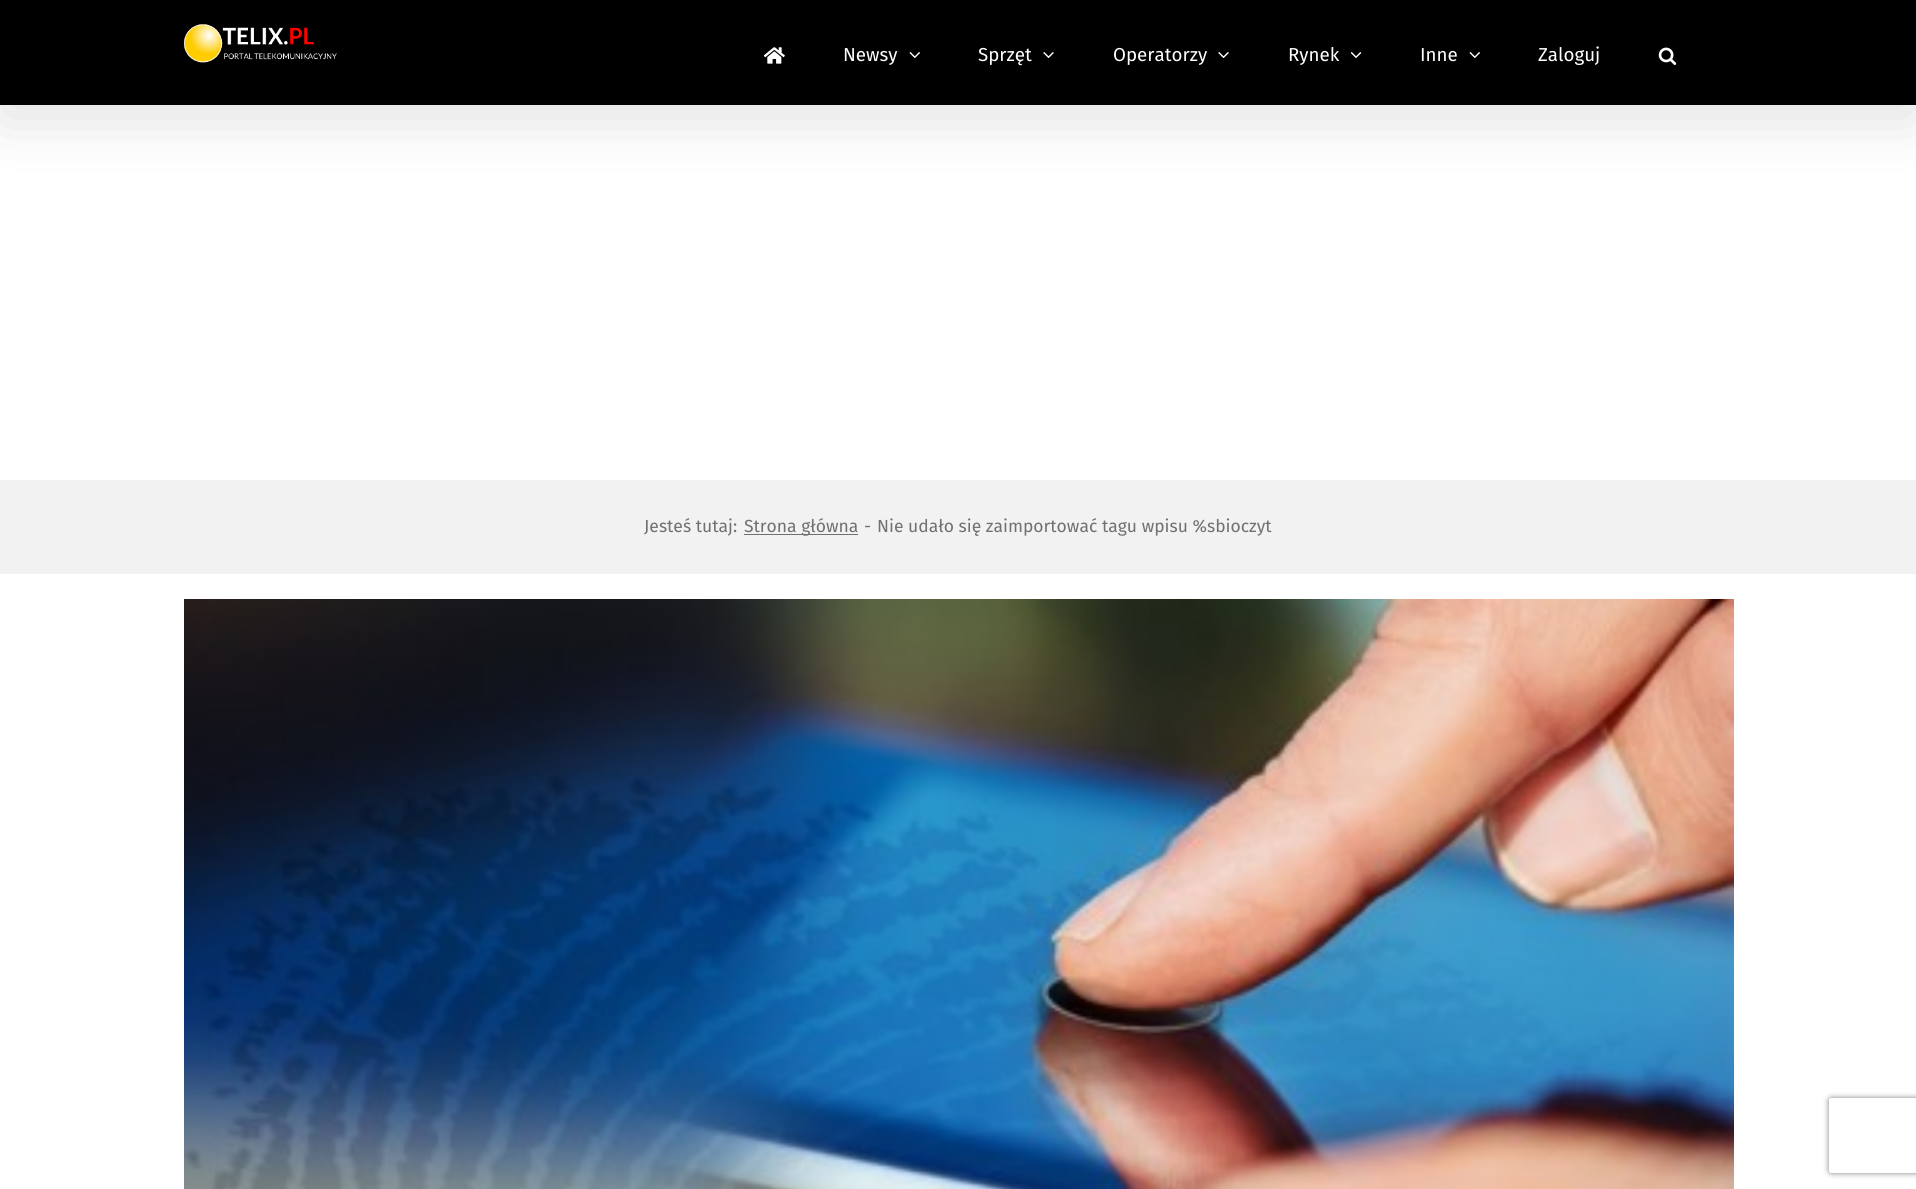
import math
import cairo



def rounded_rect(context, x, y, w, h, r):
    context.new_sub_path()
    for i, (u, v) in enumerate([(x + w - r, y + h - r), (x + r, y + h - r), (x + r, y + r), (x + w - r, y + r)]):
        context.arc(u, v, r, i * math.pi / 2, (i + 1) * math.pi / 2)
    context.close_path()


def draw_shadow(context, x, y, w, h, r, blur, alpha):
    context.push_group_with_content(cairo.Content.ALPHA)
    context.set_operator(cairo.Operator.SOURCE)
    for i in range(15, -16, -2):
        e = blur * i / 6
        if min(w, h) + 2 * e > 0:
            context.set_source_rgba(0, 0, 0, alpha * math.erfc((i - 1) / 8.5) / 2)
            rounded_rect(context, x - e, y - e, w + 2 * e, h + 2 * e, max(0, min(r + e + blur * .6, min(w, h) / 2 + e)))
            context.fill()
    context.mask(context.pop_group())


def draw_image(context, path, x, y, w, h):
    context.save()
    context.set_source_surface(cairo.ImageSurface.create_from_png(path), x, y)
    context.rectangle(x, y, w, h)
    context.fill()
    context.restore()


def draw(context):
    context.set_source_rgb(1, 1, 1)
    context.paint()
    context.set_source_rgb(0, 0, 0)
    draw_shadow(context, 3, 15, 1911, 100, 0, 31, 0.14)
    context.set_source_rgb(0, 0, 0)
    context.rectangle(0, 0, 1916, 105)
    context.fill()
    draw_image(context, "images/1.png", 183, 24, 154, 39)
    draw_image(context, "images/2.png", 764, 47, 21, 17)
    draw_image(context, "images/3.png", 909, 52, 11, 6)
    draw_image(context, "images/4.png", 1043, 52, 11, 6)
    draw_image(context, "images/4.png", 1218, 52, 11, 6)
    draw_image(context, "images/5.png", 1350, 52, 12, 6)
    draw_image(context, "images/3.png", 1469, 52, 11, 6)
    draw_image(context, "images/6.png", 1658, 47, 19, 18)
    context.set_source_rgb(242 / 255, 242 / 255, 242 / 255)
    context.rectangle(0, 480, 1916, 94)
    context.fill()
    context.set_source_rgb(112 / 255, 112 / 255, 112 / 255)
    context.rectangle(744, 534, 114, 1)
    context.fill()
    draw_image(context, "images/7.png", 184, 599, 1550, 590)
    context.save()
    context.set_fill_rule(cairo.FillRule.EVEN_ODD)
    context.new_path()
    context.move_to(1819, 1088)
    context.line_to(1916, 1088)
    context.line_to(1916, 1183)
    context.line_to(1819, 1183)
    context.close_path()
    context.move_to(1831.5, 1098)
    context.line_to(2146.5, 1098)
    context.curve_to(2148, 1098, 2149, 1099, 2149, 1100.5)
    context.line_to(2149, 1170.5)
    context.curve_to(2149, 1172, 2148, 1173, 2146.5, 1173)
    context.line_to(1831.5, 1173)
    context.curve_to(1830, 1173, 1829, 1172, 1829, 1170.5)
    context.line_to(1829, 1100.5)
    context.curve_to(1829, 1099, 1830, 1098, 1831.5, 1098)
    context.close_path()
    context.clip()
    context.set_source_rgb(128 / 255, 128 / 255, 128 / 255)
    draw_shadow(context, 1829, 1098, 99, 75, 2.5, 3, 1)
    context.restore()
    context.select_font_face("Fira Sans")
    context.set_font_size(18.75)
    context.set_source_rgb(1, 1, 1)
    context.move_to(843, 61)
    context.show_text("Newsy")
    context.move_to(978, 61)
    context.show_text("Sprzęt")
    context.move_to(1113, 61)
    context.show_text("Operatorzy")
    context.move_to(1288, 61)
    context.show_text("Rynek")
    context.move_to(1420, 61)
    context.show_text("Inne")
    context.move_to(1538, 61)
    context.show_text("Zaloguj")
    context.set_font_size(17.5)
    context.set_source_rgb(112 / 255, 112 / 255, 112 / 255)
    context.move_to(644, 532)
    context.show_text("Jesteś tutaj:")
    context.move_to(744, 532)
    context.show_text("Strona główna")
    context.move_to(864, 532)
    context.show_text("-")
    context.move_to(877, 532)
    context.show_text("Nie udało się zaimportować tagu wpisu %sbioczyt")


surface = cairo.ImageSurface(cairo.Format.RGB24, 1916, 1189)
context = cairo.Context(surface)
options = cairo.FontOptions()
options.set_hint_metrics(cairo.HintMetrics.OFF)
options.set_hint_style(cairo.HintStyle.NONE)
context.set_font_options(options)
context.set_miter_limit(4)
draw(context)
surface.write_to_png("out.png")
